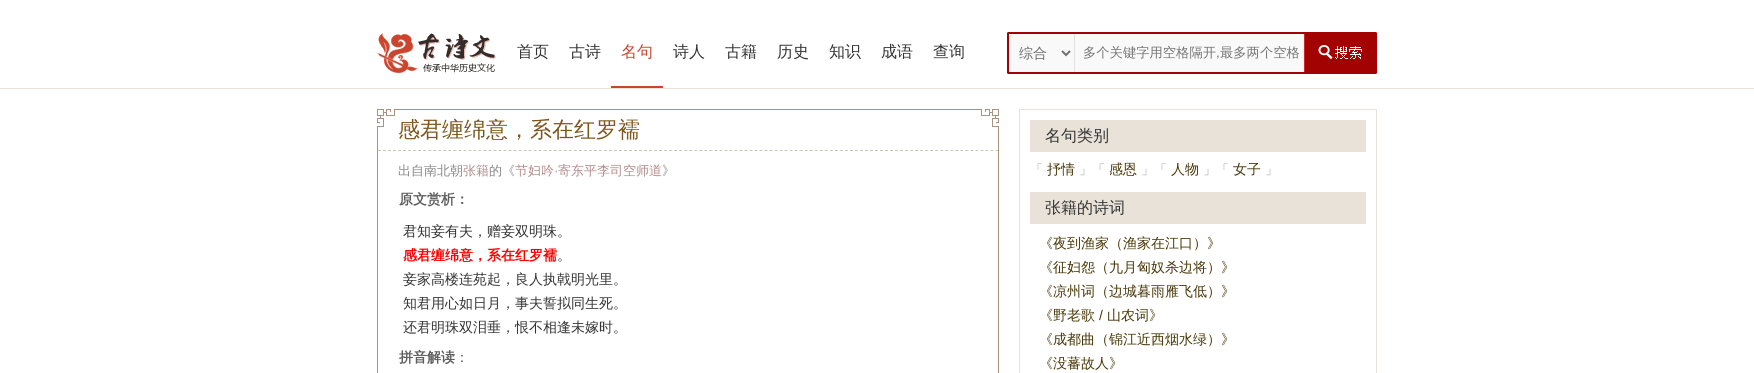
import math
import cairo



def draw_image(context, path, x, y, w, h):
    context.save()
    context.set_source_surface(cairo.ImageSurface.create_from_png(path), x, y)
    context.rectangle(x, y, w, h)
    context.fill()
    context.restore()


def draw(context):
    context.set_source_rgb(1, 1, 1)
    context.paint()
    context.set_source_rgb(233 / 255, 226 / 255, 216 / 255)
    context.rectangle(0, 88, 1754, 1)
    context.fill()
    draw_image(context, "images/1.png", 377, 33, 119, 40)
    context.set_source_rgb(203 / 255, 68 / 255, 45 / 255)
    context.rectangle(611, 86, 52, 2)
    context.fill()
    draw_image(context, "images/2.png", 1007, 32, 370, 42)
    context.set_source_rgb(249 / 255, 249 / 255, 249 / 255)
    context.rectangle(1054, 49, 11, 6)
    context.fill()
    context.set_source_rgb(225 / 255, 225 / 255, 225 / 255)
    context.rectangle(1074, 34, 1, 38)
    context.fill()
    context.new_path()
    context.move_to(1062, 51)
    context.line_to(1066, 55)
    context.line_to(1070, 51)
    context.set_source_rgb(110 / 255, 110 / 255, 110 / 255)
    context.stroke()
    context.rectangle(377.5, 109.5, 621, 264)
    context.set_source_rgb(169 / 255, 146 / 255, 126 / 255)
    context.set_line_width(1)
    context.stroke()
    draw_image(context, "images/3.png", 377, 109, 18, 18)
    context.new_path()
    context.move_to(378, 150.5)
    context.line_to(998, 150.5)
    context.set_source_rgb(202 / 255, 202 / 255, 169 / 255)
    context.set_dash([3, 2.02])
    context.stroke()
    draw_image(context, "images/4.png", 981, 109, 18, 18)
    context.rectangle(1019.5, 109.5, 357, 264)
    context.set_source_rgb(233 / 255, 226 / 255, 216 / 255)
    context.set_dash([])
    context.stroke()
    context.rectangle(1030, 120, 336, 32)
    context.fill()
    context.rectangle(1030, 192, 336, 32)
    context.fill()
    context.select_font_face("WenQuanYi Zen Hei Medium")
    context.set_font_size(16)
    context.set_source_rgb(51 / 255, 51 / 255, 51 / 255)
    context.move_to(517, 57)
    context.show_text("首页")
    context.move_to(569, 57)
    context.show_text("古诗")
    context.set_source_rgb(203 / 255, 68 / 255, 45 / 255)
    context.move_to(621, 57)
    context.show_text("名句")
    context.set_source_rgb(51 / 255, 51 / 255, 51 / 255)
    context.move_to(673, 57)
    context.show_text("诗人")
    context.move_to(725, 57)
    context.show_text("古籍")
    context.move_to(777, 57)
    context.show_text("历史")
    context.move_to(829, 57)
    context.show_text("知识")
    context.move_to(881, 57)
    context.show_text("成语")
    context.move_to(933, 57)
    context.show_text("查询")
    context.set_font_size(14)
    context.set_source_rgb(110 / 255, 110 / 255, 110 / 255)
    context.move_to(1019, 58)
    context.show_text("综合")
    context.set_font_size(13.3)
    context.set_source_rgb(117 / 255, 117 / 255, 117 / 255)
    context.move_to(1083, 57)
    context.show_text("多个关键字用空格隔开 最多两个空格")
    context.select_font_face("Liberation Sans")
    context.move_to(1216, 57)
    context.show_text(",")
    context.select_font_face("WenQuanYi Zen Hei Medium")
    context.set_font_size(22)
    context.set_source_rgb(125 / 255, 85 / 255, 29 / 255)
    context.move_to(398, 137)
    context.show_text("感君缠绵意，系在红罗襦")
    context.set_font_size(13)
    context.set_source_rgb(136 / 255, 136 / 255, 136 / 255)
    context.move_to(398, 175)
    context.show_text("出自南北朝")
    context.set_source_rgb(178 / 255, 139 / 255, 139 / 255)
    context.move_to(463, 175)
    context.show_text("张籍")
    context.set_source_rgb(136 / 255, 136 / 255, 136 / 255)
    context.move_to(489, 175)
    context.show_text("的《")
    context.set_source_rgb(178 / 255, 139 / 255, 139 / 255)
    context.move_to(515, 175)
    context.show_text("节妇吟")
    context.select_font_face("Liberation Sans")
    context.move_to(554, 175)
    context.show_text("·")
    context.select_font_face("WenQuanYi Zen Hei Medium")
    context.move_to(558, 175)
    context.show_text("寄东平李司空师道")
    context.set_source_rgb(136 / 255, 136 / 255, 136 / 255)
    context.move_to(662, 175)
    context.show_text("》")
    context.select_font_face("WenQuanYi Zen Hei", cairo.FontSlant.NORMAL, cairo.FontWeight.BOLD)
    context.set_font_size(14)
    context.set_source_rgb(94 / 255, 94 / 255, 94 / 255)
    context.move_to(399, 204)
    context.show_text("原文赏析：")
    context.select_font_face("WenQuanYi Zen Hei Medium")
    context.set_source_rgb(51 / 255, 51 / 255, 51 / 255)
    context.move_to(403, 236)
    context.show_text("君知妾有夫，赠妾双明珠。")
    context.select_font_face("WenQuanYi Zen Hei", cairo.FontSlant.NORMAL, cairo.FontWeight.BOLD)
    context.set_source_rgb(1, 0, 0)
    context.move_to(403, 260)
    context.show_text("感君缠绵意，系在红罗襦")
    context.select_font_face("WenQuanYi Zen Hei Medium")
    context.set_source_rgb(51 / 255, 51 / 255, 51 / 255)
    context.move_to(557, 260)
    context.show_text("。")
    context.move_to(403, 284)
    context.show_text("妾家高楼连苑起，良人执戟明光里。")
    context.move_to(403, 308)
    context.show_text("知君用心如日月，事夫誓拟同生死。")
    context.move_to(403, 332)
    context.show_text("还君明珠双泪垂，恨不相逢未嫁时。")
    context.select_font_face("WenQuanYi Zen Hei", cairo.FontSlant.NORMAL, cairo.FontWeight.BOLD)
    context.set_source_rgb(94 / 255, 94 / 255, 94 / 255)
    context.move_to(399, 362)
    context.show_text("拼音解读")
    context.select_font_face("WenQuanYi Zen Hei Medium")
    context.move_to(455, 362)
    context.show_text("：")
    context.set_font_size(16)
    context.set_source_rgb(51 / 255, 51 / 255, 51 / 255)
    context.move_to(1045, 141)
    context.show_text("名句类别")
    context.set_font_size(13)
    context.set_source_rgb(153 / 255, 153 / 255, 153 / 255)
    context.move_to(1030, 174)
    context.show_text("「")
    context.set_font_size(14)
    context.set_source_rgb(72 / 255, 56 / 255, 8 / 255)
    context.move_to(1047, 174)
    context.show_text("抒情")
    context.set_font_size(13)
    context.set_source_rgb(153 / 255, 153 / 255, 153 / 255)
    context.move_to(1079, 174)
    context.show_text("」「")
    context.set_font_size(14)
    context.set_source_rgb(72 / 255, 56 / 255, 8 / 255)
    context.move_to(1109, 174)
    context.show_text("感恩")
    context.set_font_size(13)
    context.set_source_rgb(153 / 255, 153 / 255, 153 / 255)
    context.move_to(1141, 174)
    context.show_text("」「")
    context.set_font_size(14)
    context.set_source_rgb(72 / 255, 56 / 255, 8 / 255)
    context.move_to(1171, 174)
    context.show_text("人物")
    context.set_font_size(13)
    context.set_source_rgb(153 / 255, 153 / 255, 153 / 255)
    context.move_to(1203, 174)
    context.show_text("」「")
    context.set_font_size(14)
    context.set_source_rgb(72 / 255, 56 / 255, 8 / 255)
    context.move_to(1233, 174)
    context.show_text("女子")
    context.set_font_size(13)
    context.set_source_rgb(153 / 255, 153 / 255, 153 / 255)
    context.move_to(1265, 174)
    context.show_text("」")
    context.set_font_size(16)
    context.set_source_rgb(51 / 255, 51 / 255, 51 / 255)
    context.move_to(1045, 213)
    context.show_text("张籍的诗词")
    context.set_font_size(14)
    context.set_source_rgb(72 / 255, 56 / 255, 8 / 255)
    context.move_to(1039, 248)
    context.show_text("《夜到渔家（渔家在江口）》")
    context.move_to(1039, 272)
    context.show_text("《征妇怨（九月匈奴杀边将）》")
    context.move_to(1039, 296)
    context.show_text("《凉州词（边城暮雨雁飞低）》")
    context.move_to(1039, 320)
    context.show_text("《野老歌")
    context.select_font_face("Liberation Sans")
    context.move_to(1099, 320)
    context.show_text("/")
    context.select_font_face("WenQuanYi Zen Hei Medium")
    context.move_to(1107, 320)
    context.show_text("山农词》")
    context.move_to(1039, 344)
    context.show_text("《成都曲（锦江近西烟水绿）》")
    context.move_to(1039, 368)
    context.show_text("《没蕃故人》")


surface = cairo.ImageSurface(cairo.Format.RGB24, 1754, 373)
context = cairo.Context(surface)
options = cairo.FontOptions()
options.set_hint_metrics(cairo.HintMetrics.OFF)
options.set_hint_style(cairo.HintStyle.NONE)
context.set_font_options(options)
context.set_miter_limit(4)
draw(context)
surface.write_to_png("out.png")
